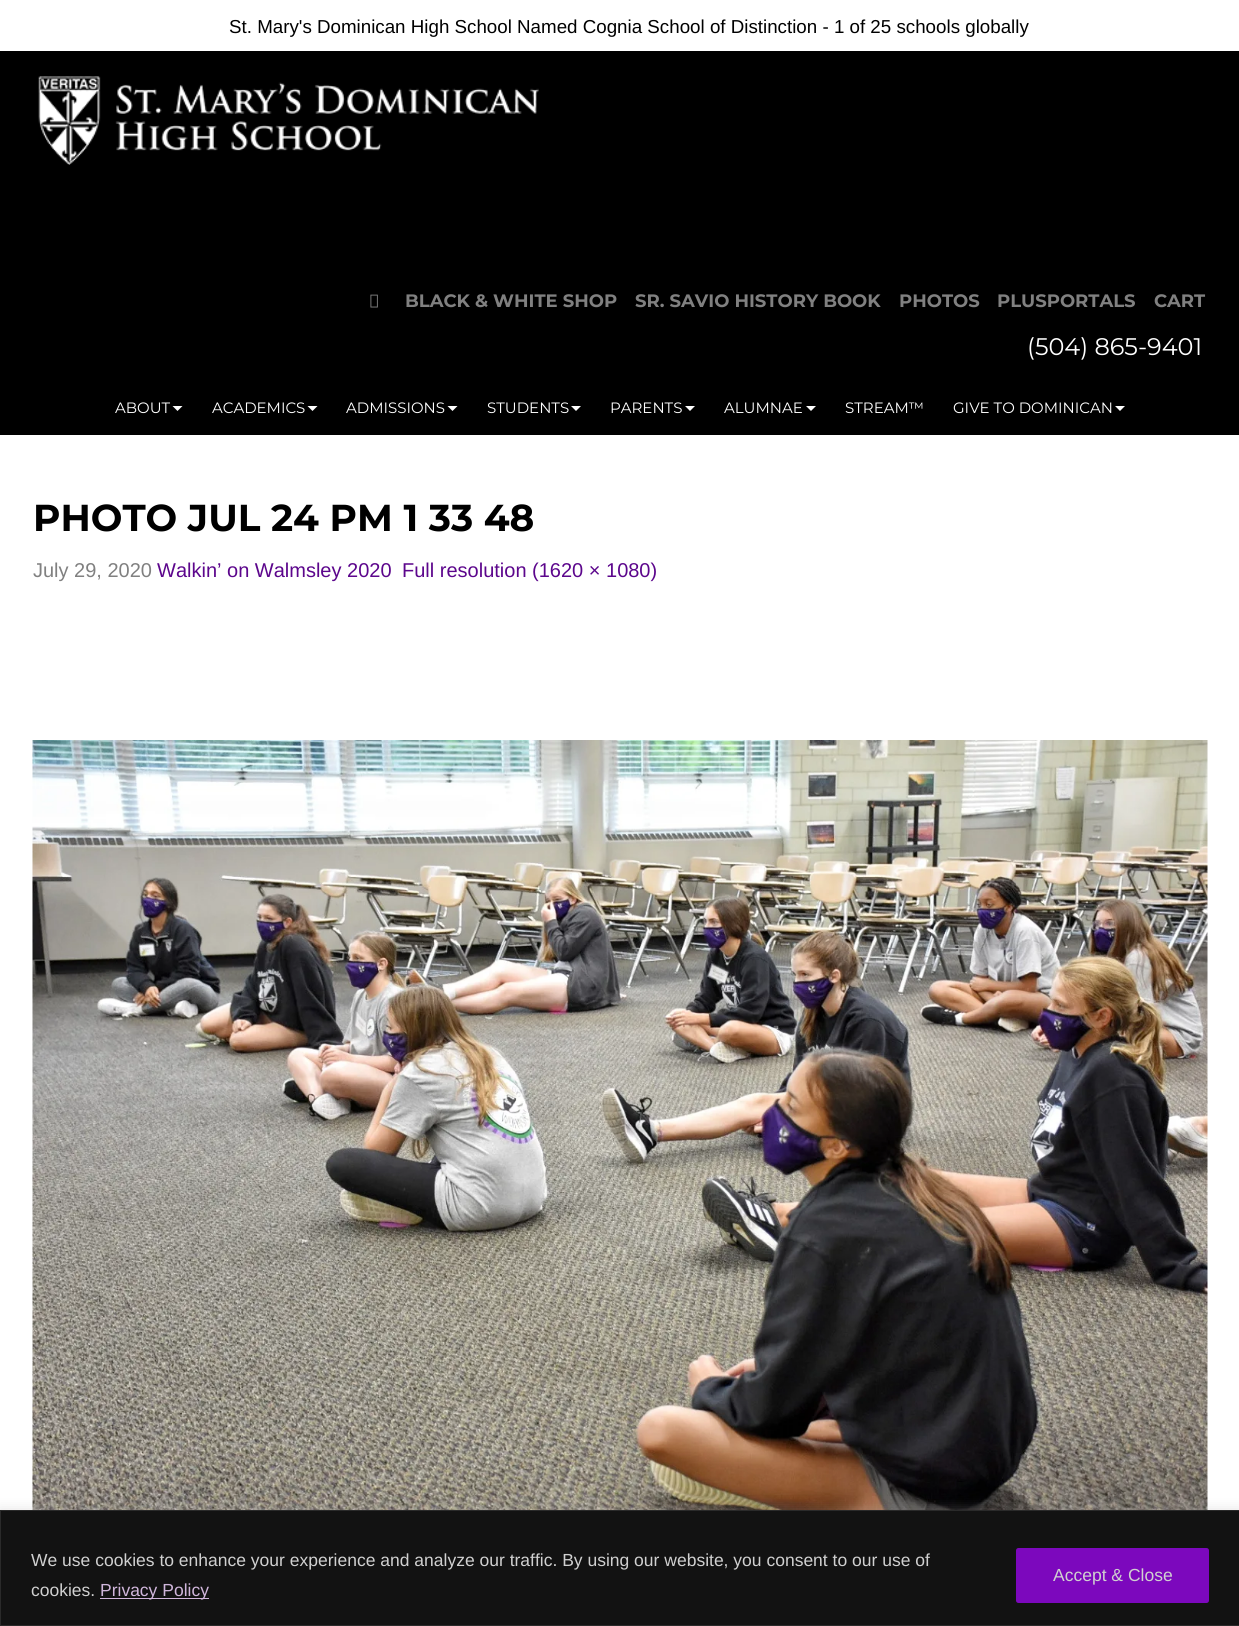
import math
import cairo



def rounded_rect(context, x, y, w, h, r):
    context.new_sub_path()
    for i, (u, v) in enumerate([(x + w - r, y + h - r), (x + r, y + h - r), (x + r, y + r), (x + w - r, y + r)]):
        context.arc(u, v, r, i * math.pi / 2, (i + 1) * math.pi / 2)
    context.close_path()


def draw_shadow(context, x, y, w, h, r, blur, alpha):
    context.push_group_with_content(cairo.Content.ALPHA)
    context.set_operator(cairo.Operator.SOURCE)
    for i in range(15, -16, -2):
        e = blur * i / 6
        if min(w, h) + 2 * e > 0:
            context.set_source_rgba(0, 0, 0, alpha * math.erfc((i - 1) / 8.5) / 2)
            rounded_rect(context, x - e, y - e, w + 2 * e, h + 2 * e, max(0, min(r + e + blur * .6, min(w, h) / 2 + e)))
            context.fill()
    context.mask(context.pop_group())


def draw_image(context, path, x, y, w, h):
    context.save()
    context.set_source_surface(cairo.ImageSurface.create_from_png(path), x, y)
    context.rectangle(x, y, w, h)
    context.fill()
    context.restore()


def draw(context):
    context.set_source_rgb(1, 1, 1)
    context.paint()
    context.set_source_rgb(0, 0, 0)
    context.rectangle(0, 51, 1239, 384)
    context.fill()
    draw_image(context, "images/1.png", 38, 76, 501, 89)
    draw_image(context, "images/2.png", 370, 294, 8, 14)
    context.set_source_rgb(1, 1, 1)
    context.new_path()
    context.move_to(172.5, 406)
    context.line_to(182.5, 406)
    context.line_to(177.5, 411)
    context.close_path()
    context.fill()
    context.new_path()
    context.move_to(307.5, 406)
    context.line_to(317.5, 406)
    context.line_to(312.5, 411)
    context.close_path()
    context.fill()
    context.new_path()
    context.move_to(447.5, 406)
    context.line_to(457.5, 406)
    context.line_to(452.5, 411)
    context.close_path()
    context.fill()
    context.new_path()
    context.move_to(571, 406)
    context.line_to(581, 406)
    context.line_to(576, 411)
    context.close_path()
    context.fill()
    context.new_path()
    context.move_to(685, 406)
    context.line_to(695, 406)
    context.line_to(690, 411)
    context.close_path()
    context.fill()
    context.new_path()
    context.move_to(806, 406)
    context.line_to(816, 406)
    context.line_to(811, 411)
    context.close_path()
    context.fill()
    context.new_path()
    context.move_to(1115, 406)
    context.line_to(1125, 406)
    context.line_to(1120, 411)
    context.close_path()
    context.fill()
    draw_image(context, "images/3.png", 32, 740, 1176, 770)
    context.set_source_rgb(172 / 255, 171 / 255, 171 / 255)
    draw_shadow(context, 0, 1509, 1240, 116, 0, 6, 0.3)
    context.set_source_rgb(18 / 255, 18 / 255, 18 / 255)
    context.rectangle(0.5, 1510.5, 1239, 115)
    context.fill_preserve()
    context.set_source_rgb(42 / 255, 42 / 255, 42 / 255)
    context.set_line_width(1)
    context.stroke()
    context.set_source_rgb(208 / 255, 182 / 255, 219 / 255)
    context.rectangle(100, 1598, 109, 1)
    context.fill()
    context.set_source_rgb(124 / 255, 8 / 255, 189 / 255)
    rounded_rect(context, 1017.5, 1549.5, 190, 52, 1)
    context.fill_preserve()
    context.set_line_width(3)
    context.stroke()
    context.select_font_face("Liberation Sans")
    context.set_font_size(18.75)
    context.set_source_rgb(0, 0, 0)
    context.move_to(229, 33)
    context.show_text("St. Mary's Dominican High School Named Cognia School of Distinction - 1 of 25 schools globally")
    context.select_font_face("Montserrat", cairo.FontSlant.NORMAL, cairo.FontWeight.BOLD)
    context.set_font_size(18)
    context.set_source_rgb(128 / 255, 128 / 255, 128 / 255)
    context.move_to(405, 307)
    context.show_text("BLACK & WHITE SHOP")
    context.move_to(635, 307)
    context.show_text("SR. SAVIO HISTORY BOOK")
    context.move_to(899, 307)
    context.show_text("PHOTOS")
    context.move_to(997, 307)
    context.show_text("PLUSPORTALS")
    context.move_to(1154, 307)
    context.show_text("CART")
    context.select_font_face("Montserrat")
    context.set_font_size(24)
    context.set_source_rgb(1, 1, 1)
    context.move_to(1027, 355)
    context.show_text("(504) 865-9401")
    context.set_font_size(15)
    context.move_to(115, 413)
    context.show_text("ABOUT")
    context.move_to(212, 413)
    context.show_text("ACADEMICS")
    context.move_to(346, 413)
    context.show_text("ADMISSIONS")
    context.move_to(487, 413)
    context.show_text("STUDENTS")
    context.move_to(610, 413)
    context.show_text("PARENTS")
    context.move_to(724, 413)
    context.show_text("ALUMNAE")
    context.move_to(845, 413)
    context.show_text("STREAM™")
    context.move_to(953, 413)
    context.show_text("GIVE TO DOMINICAN")
    context.select_font_face("Montserrat", cairo.FontSlant.NORMAL, cairo.FontWeight.BOLD)
    context.set_font_size(37.5)
    context.set_source_rgb(0, 0, 0)
    context.move_to(33, 531)
    context.show_text("PHOTO JUL 24 PM 1 33 48")
    context.select_font_face("Liberation Sans")
    context.set_font_size(20)
    context.set_source_rgb(128 / 255, 128 / 255, 128 / 255)
    context.move_to(33, 577)
    context.show_text("July 29, 2020")
    context.set_source_rgb(92 / 255, 6 / 255, 140 / 255)
    context.move_to(157, 577)
    context.show_text("Walkin’ on Walmsley 2020")
    context.move_to(402, 577)
    context.show_text("Full resolution (1620 × 1080)")
    context.set_font_size(17.5)
    context.set_source_rgb(208 / 255, 208 / 255, 208 / 255)
    context.move_to(31, 1566)
    context.show_text("We use cookies to enhance your experience and analyze our traffic. By using our website, you consent to our use of")
    context.move_to(31, 1596)
    context.show_text("cookies.")
    context.set_source_rgb(208 / 255, 182 / 255, 219 / 255)
    context.move_to(100, 1596)
    context.show_text("Privacy Policy")
    context.set_source_rgb(208 / 255, 208 / 255, 208 / 255)
    context.move_to(1053, 1581)
    context.show_text("Accept & Close")


surface = cairo.ImageSurface(cairo.Format.RGB24, 1239, 1626)
context = cairo.Context(surface)
options = cairo.FontOptions()
options.set_hint_metrics(cairo.HintMetrics.OFF)
options.set_hint_style(cairo.HintStyle.NONE)
context.set_font_options(options)
context.set_miter_limit(4)
draw(context)
surface.write_to_png("out.png")
